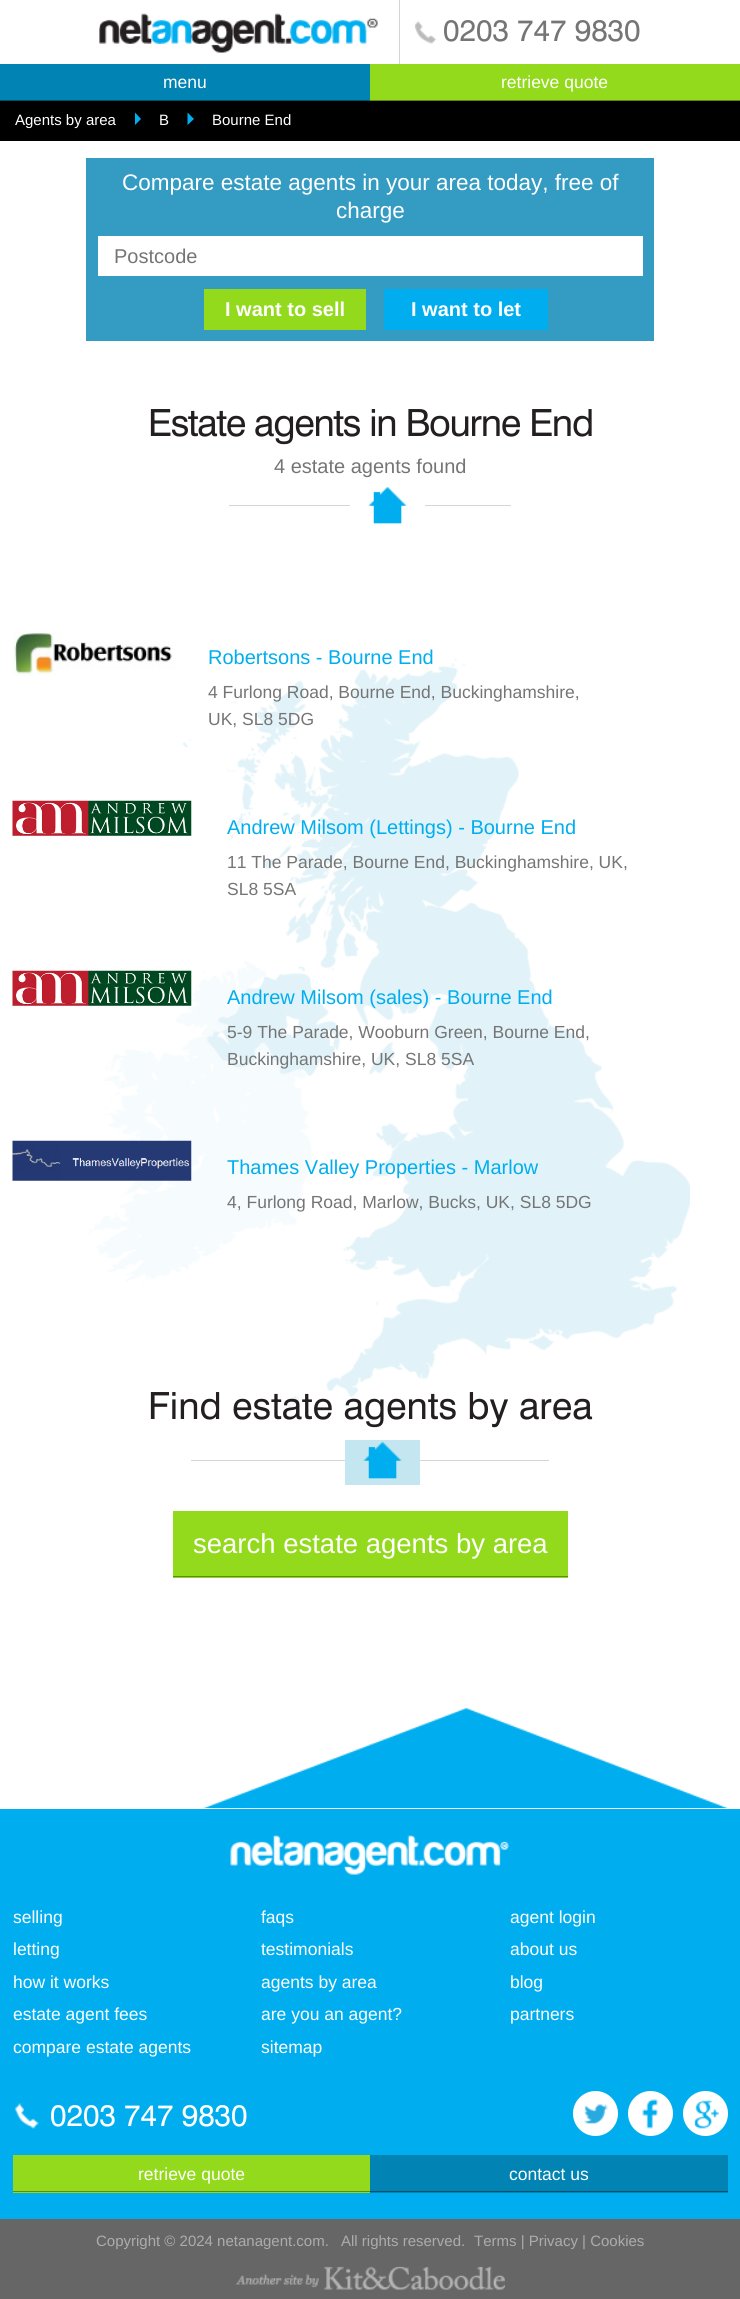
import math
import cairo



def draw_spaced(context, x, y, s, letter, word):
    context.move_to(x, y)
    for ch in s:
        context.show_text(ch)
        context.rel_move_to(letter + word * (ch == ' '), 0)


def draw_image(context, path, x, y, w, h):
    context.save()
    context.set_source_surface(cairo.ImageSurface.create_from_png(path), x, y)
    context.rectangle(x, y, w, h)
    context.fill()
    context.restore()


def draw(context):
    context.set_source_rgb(1, 1, 1)
    context.paint()
    draw_image(context, "images/1.png", 99, 13, 279, 40)
    draw_image(context, "images/2.png", 414, 21, 23, 23)
    context.set_source_rgb(213 / 255, 213 / 255, 213 / 255)
    context.rectangle(399, 0, 1, 64)
    context.fill()
    context.set_source_rgb(1 / 255, 131 / 255, 179 / 255)
    context.rectangle(0, 64, 370, 36)
    context.fill()
    context.set_source_rgb(0, 80 / 255, 109 / 255)
    context.rectangle(0, 100, 370, 1)
    context.fill()
    context.set_source_rgb(147 / 255, 217 / 255, 28 / 255)
    context.rectangle(370, 64, 370, 36)
    context.fill()
    context.set_source_rgb(93 / 255, 138 / 255, 17 / 255)
    context.rectangle(370, 100, 370, 1)
    context.fill()
    context.set_source_rgb(0, 0, 0)
    context.rectangle(0, 101, 740, 40)
    context.fill()
    context.set_source_rgb(0, 175 / 255, 239 / 255)
    context.new_path()
    context.move_to(135, 125)
    context.line_to(135, 112.5)
    context.line_to(141, 119)
    context.close_path()
    context.fill()
    context.new_path()
    context.move_to(187.5, 125)
    context.line_to(187.5, 112.5)
    context.line_to(194, 119)
    context.close_path()
    context.fill()
    context.set_source_rgb(52 / 255, 156 / 255, 194 / 255)
    context.rectangle(86, 158, 568, 183)
    context.fill()
    context.set_source_rgb(1, 1, 1)
    context.rectangle(98, 236, 545, 40)
    context.fill()
    context.set_source_rgb(147 / 255, 217 / 255, 28 / 255)
    context.rectangle(204, 289, 162, 41)
    context.fill()
    context.set_source_rgb(0, 174 / 255, 239 / 255)
    context.rectangle(384, 289, 164, 41)
    context.fill()
    context.set_source_rgb(213 / 255, 213 / 255, 213 / 255)
    context.rectangle(229, 505, 282, 1)
    context.fill()
    context.set_source_rgb(1, 1, 1)
    context.rectangle(350, 505, 75, 1)
    context.fill()
    draw_image(context, "images/3.png", 368, 486, 39, 38)
    draw_image(context, "images/4.png", 88, 581, 602, 824)
    draw_image(context, "images/5.png", 13, 631, 162, 45)
    draw_image(context, "images/6.png", 12, 800, 180, 36)
    draw_image(context, "images/7.png", 12, 970, 180, 36)
    draw_image(context, "images/8.png", 12, 1140, 180, 41)
    context.set_source_rgb(213 / 255, 213 / 255, 213 / 255)
    context.rectangle(191, 1460, 358, 1)
    context.fill()
    context.set_source_rgb(195 / 255, 230 / 255, 240 / 255)
    context.rectangle(345, 1440, 75, 45)
    context.fill()
    draw_image(context, "images/9.png", 363, 1441, 39, 38)
    context.set_source_rgb(147 / 255, 217 / 255, 28 / 255)
    context.rectangle(173, 1511, 395, 67)
    context.fill()
    context.set_source_rgb(93 / 255, 138 / 255, 17 / 255)
    context.rectangle(173, 1576, 395, 1)
    context.fill()
    draw_image(context, "images/10.png", 203, 1708, 525, 101)
    context.set_source_rgb(0, 174 / 255, 239 / 255)
    context.rectangle(0, 1809, 740, 410)
    context.fill()
    draw_image(context, "images/11.png", 230, 1835, 279, 40)
    draw_image(context, "images/12.png", 14, 2103, 25, 26)
    context.set_source_rgb(1, 1, 1)
    context.arc(595.5, 2113.5, 22.5, 0, 2 * math.pi)
    context.fill()
    draw_image(context, "images/13.png", 583, 2104, 25, 20)
    context.arc(650.5, 2113.5, 22.5, 0, 2 * math.pi)
    context.fill()
    draw_image(context, "images/14.png", 642, 2099, 16, 30)
    context.arc(705.5, 2113.5, 22.5, 0, 2 * math.pi)
    context.fill()
    draw_image(context, "images/15.png", 694, 2100, 25, 29)
    context.set_source_rgb(147 / 255, 217 / 255, 28 / 255)
    context.rectangle(13, 2155, 357, 38)
    context.fill()
    context.set_source_rgb(93 / 255, 138 / 255, 17 / 255)
    context.rectangle(13, 2191, 357, 1)
    context.fill()
    context.set_source_rgb(1 / 255, 131 / 255, 179 / 255)
    context.rectangle(370, 2155, 358, 38)
    context.fill()
    context.set_source_rgb(0, 80 / 255, 109 / 255)
    context.rectangle(370, 2191, 358, 1)
    context.fill()
    context.set_source_rgb(102 / 255, 102 / 255, 102 / 255)
    context.rectangle(0, 2219, 740, 80)
    context.fill()
    draw_image(context, "images/16.png", 236, 2266, 269, 24)
    context.select_font_face("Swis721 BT")
    context.set_font_size(30)
    context.set_source_rgb(117 / 255, 117 / 255, 117 / 255)
    context.move_to(443, 41)
    context.show_text("0203 747 9830")
    context.select_font_face("Liberation Sans")
    context.set_font_size(17.5)
    context.set_source_rgb(1, 1, 1)
    context.move_to(163, 88)
    context.show_text("menu")
    context.move_to(501, 88)
    context.show_text("retrieve quote")
    context.set_font_size(15)
    context.move_to(15, 125)
    context.show_text("Agents by area")
    context.move_to(159, 125)
    context.show_text("B")
    context.move_to(212, 125)
    context.show_text("Bourne End")
    context.set_font_size(22.5)
    context.move_to(122, 190)
    context.show_text("Compare estate agents in your area today, free of")
    context.move_to(336, 218)
    context.show_text("charge")
    context.set_font_size(20)
    context.set_source_rgb(117 / 255, 117 / 255, 117 / 255)
    context.move_to(114, 263)
    context.show_text("Postcode")
    context.select_font_face("Liberation Sans", cairo.FontSlant.NORMAL, cairo.FontWeight.BOLD)
    context.set_source_rgb(1, 1, 1)
    context.move_to(225, 316)
    context.show_text("I want to sell")
    context.move_to(411, 316)
    context.show_text("I want to let")
    context.select_font_face("Swis721 BT")
    context.set_font_size(37.5)
    context.set_source_rgb(35 / 255, 31 / 255, 32 / 255)
    draw_spaced(context, 148, 436, "Estate agents in Bourne End", -1.25, 0)
    context.select_font_face("Liberation Sans")
    context.set_font_size(20)
    context.set_source_rgb(117 / 255, 117 / 255, 117 / 255)
    context.move_to(274, 473)
    context.show_text("4 estate agents found")
    context.set_source_rgb(0, 174 / 255, 239 / 255)
    context.move_to(208, 664)
    context.show_text("Robertsons - Bourne End")
    context.set_font_size(17.5)
    context.set_source_rgb(117 / 255, 117 / 255, 117 / 255)
    context.move_to(208, 698)
    context.show_text("4 Furlong Road, Bourne End, Buckinghamshire,")
    context.move_to(208, 725)
    context.show_text("UK, SL8 5DG")
    context.set_font_size(20)
    context.set_source_rgb(0, 174 / 255, 239 / 255)
    context.move_to(227, 834)
    context.show_text("Andrew Milsom (Lettings) - Bourne End")
    context.set_font_size(17.5)
    context.set_source_rgb(117 / 255, 117 / 255, 117 / 255)
    context.move_to(227, 868)
    context.show_text("11 The Parade, Bourne End, Buckinghamshire, UK,")
    context.move_to(227, 895)
    context.show_text("SL8 5SA")
    context.set_font_size(20)
    context.set_source_rgb(0, 174 / 255, 239 / 255)
    context.move_to(227, 1004)
    context.show_text("Andrew Milsom (sales) - Bourne End")
    context.set_font_size(17.5)
    context.set_source_rgb(117 / 255, 117 / 255, 117 / 255)
    context.move_to(227, 1038)
    context.show_text("5-9 The Parade, Wooburn Green, Bourne End,")
    context.move_to(227, 1065)
    context.show_text("Buckinghamshire, UK, SL8 5SA")
    context.set_font_size(20)
    context.set_source_rgb(0, 174 / 255, 239 / 255)
    context.move_to(227, 1174)
    context.show_text("Thames Valley Properties - Marlow")
    context.set_font_size(17.5)
    context.set_source_rgb(117 / 255, 117 / 255, 117 / 255)
    context.move_to(227, 1208)
    context.show_text("4, Furlong Road, Marlow, Bucks, UK, SL8 5DG")
    context.select_font_face("Swis721 BT")
    context.set_font_size(37.5)
    context.set_source_rgb(35 / 255, 31 / 255, 32 / 255)
    context.move_to(148, 1419)
    context.show_text("Find estate agents by area")
    context.select_font_face("Liberation Sans")
    context.set_font_size(27.5)
    context.set_source_rgb(1, 1, 1)
    context.move_to(193, 1553)
    context.show_text("search estate agents by area")
    context.set_font_size(17.5)
    context.move_to(13, 1923)
    context.show_text("selling")
    context.move_to(13, 1955)
    context.show_text("letting")
    context.move_to(13, 1988)
    context.show_text("how it works")
    context.move_to(13, 2020)
    context.show_text("estate agent fees")
    context.move_to(13, 2053)
    context.show_text("compare estate agents")
    context.move_to(261, 1923)
    context.show_text("faqs")
    context.move_to(261, 1955)
    context.show_text("testimonials")
    context.move_to(261, 1988)
    context.show_text("agents by area")
    context.move_to(261, 2020)
    context.show_text("are you an agent?")
    context.move_to(261, 2053)
    context.show_text("sitemap")
    context.move_to(510, 1923)
    context.show_text("agent login")
    context.move_to(510, 1955)
    context.show_text("about us")
    context.move_to(510, 1988)
    context.show_text("blog")
    context.move_to(510, 2020)
    context.show_text("partners")
    context.select_font_face("Swis721 BT")
    context.set_font_size(30)
    context.move_to(50, 2126)
    context.show_text("0203 747 9830")
    context.select_font_face("Liberation Sans")
    context.set_font_size(17.5)
    context.move_to(138, 2180)
    context.show_text("retrieve quote")
    context.move_to(509, 2180)
    context.show_text("contact us")
    context.set_font_size(15)
    context.set_source_rgb(172 / 255, 172 / 255, 172 / 255)
    context.move_to(96, 2246)
    context.show_text("Copyright © 2024 netanagent.com.")
    context.move_to(341, 2246)
    context.show_text("All rights reserved.")
    context.move_to(474, 2246)
    context.show_text("Terms | Privacy | Cookies")


surface = cairo.ImageSurface(cairo.Format.RGB24, 740, 2299)
context = cairo.Context(surface)
options = cairo.FontOptions()
options.set_hint_metrics(cairo.HintMetrics.OFF)
options.set_hint_style(cairo.HintStyle.NONE)
context.set_font_options(options)
context.set_miter_limit(4)
draw(context)
surface.write_to_png("out.png")
